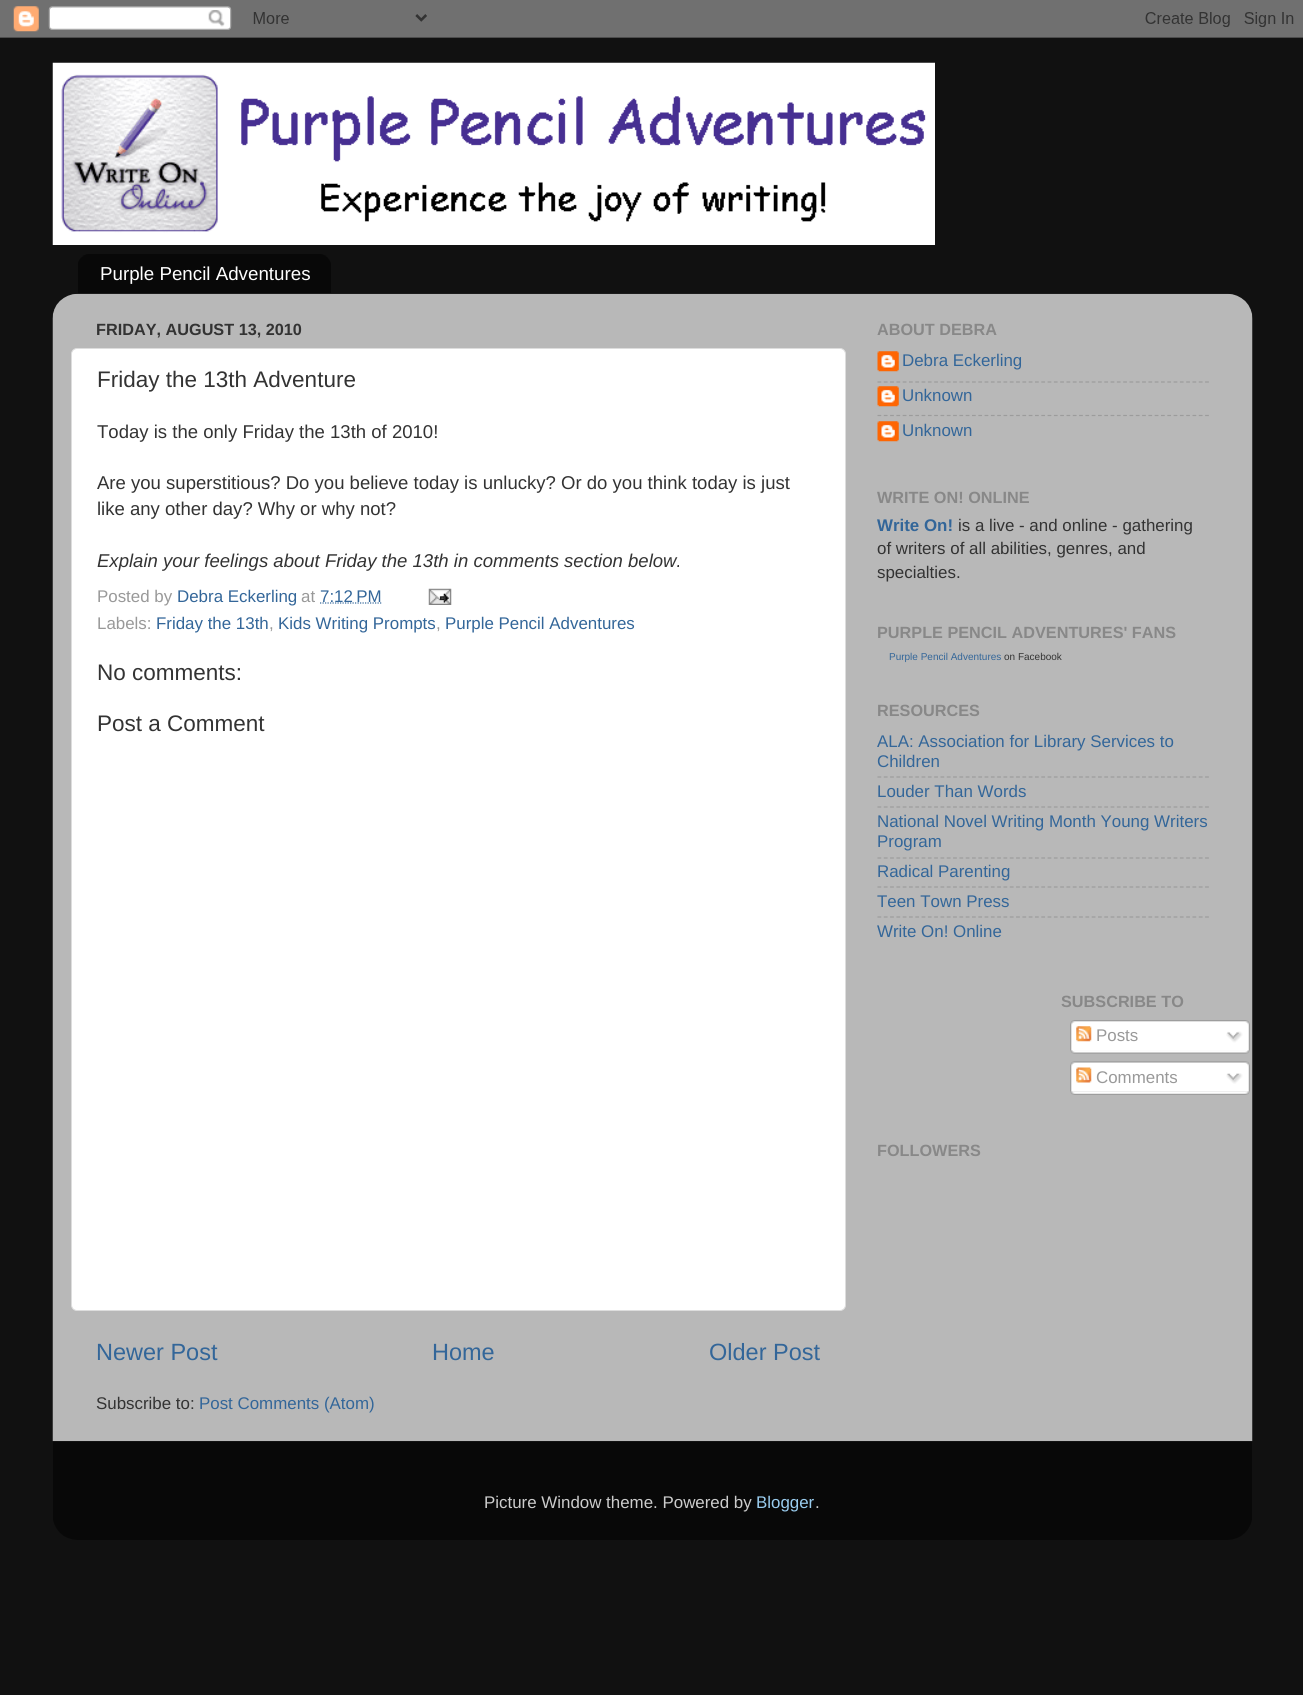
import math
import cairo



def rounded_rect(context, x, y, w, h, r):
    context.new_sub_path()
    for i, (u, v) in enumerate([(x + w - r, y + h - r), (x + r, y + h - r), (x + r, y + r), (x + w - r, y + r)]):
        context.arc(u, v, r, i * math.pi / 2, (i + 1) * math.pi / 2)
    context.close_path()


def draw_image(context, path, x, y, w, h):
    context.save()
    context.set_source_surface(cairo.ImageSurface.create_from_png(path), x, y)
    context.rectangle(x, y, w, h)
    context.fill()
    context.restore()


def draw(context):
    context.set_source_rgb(17 / 255, 17 / 255, 17 / 255)
    context.paint()
    draw_image(context, "images/1.png", 0, 0, 1303, 38)
    draw_image(context, "images/2.png", 52, 62, 883, 183)
    draw_image(context, "images/3.png", 78, 254, 253, 39)
    draw_image(context, "images/4.png", 52, 293, 1201, 1149)
    context.set_source_rgb(1, 1, 1)
    rounded_rect(context, 71.5, 348.5, 774, 962, 5.5)
    context.fill_preserve()
    context.set_source_rgb(221 / 255, 221 / 255, 221 / 255)
    context.set_line_width(1)
    context.stroke()
    context.new_path()
    context.move_to(320, 603)
    context.line_to(381.5, 603)
    context.set_source_rgb(51 / 255, 102 / 255, 153 / 255)
    context.set_line_width(1.2)
    context.set_dash([1.25, 1.25])
    context.stroke()
    draw_image(context, "images/5.png", 428, 588, 24, 17)
    draw_image(context, "images/6.png", 877, 351, 22, 21)
    context.new_path()
    context.move_to(877.5, 382)
    context.line_to(1209, 382)
    context.set_source_rgb(156 / 255, 156 / 255, 156 / 255)
    context.set_dash([3.75, 2.55])
    context.stroke()
    draw_image(context, "images/6.png", 877, 386, 22, 21)
    context.new_path()
    context.move_to(877.5, 415.5)
    context.line_to(1209, 415.5)
    context.stroke()
    draw_image(context, "images/6.png", 877, 421, 22, 21)
    context.new_path()
    context.move_to(877.5, 777)
    context.line_to(1209, 777)
    context.stroke()
    context.new_path()
    context.move_to(877.5, 807)
    context.line_to(1209, 807)
    context.stroke()
    context.new_path()
    context.move_to(877.5, 858)
    context.line_to(1209, 858)
    context.stroke()
    context.new_path()
    context.move_to(877.5, 887)
    context.line_to(1209, 887)
    context.stroke()
    context.new_path()
    context.move_to(877.5, 917)
    context.line_to(1209, 917)
    context.stroke()
    draw_image(context, "images/7.png", 1070, 1020, 180, 30)
    draw_image(context, "images/8.png", 1076, 1026, 16, 16)
    draw_image(context, "images/9.png", 1226, 1031, 17, 12)
    draw_image(context, "images/10.png", 1070, 1050, 180, 4)
    draw_image(context, "images/11.png", 1070, 1061, 180, 31)
    draw_image(context, "images/12.png", 1076, 1067, 16, 16)
    draw_image(context, "images/13.png", 1226, 1073, 17, 11)
    draw_image(context, "images/14.png", 1070, 1091, 180, 4)
    draw_image(context, "images/15.png", 53, 1441, 1199, 99)
    context.select_font_face("Liberation Sans")
    context.set_font_size(18.75)
    context.set_source_rgb(1, 1, 1)
    context.move_to(100, 280)
    context.show_text("Purple Pencil Adventures")
    context.select_font_face("Liberation Sans", cairo.FontSlant.NORMAL, cairo.FontWeight.BOLD)
    context.set_font_size(16.25)
    context.set_source_rgb(51 / 255, 51 / 255, 51 / 255)
    context.move_to(96, 335)
    context.show_text("FRIDAY, AUGUST 13, 2010")
    context.select_font_face("Liberation Sans")
    context.set_font_size(22.5)
    context.move_to(97, 387)
    context.show_text("Friday the 13th Adventure")
    context.set_font_size(18.55)
    context.move_to(97, 438)
    context.show_text("Today is the only Friday the 13th of 2010!")
    context.move_to(97, 489)
    context.show_text("Are you superstitious? Do you believe today is unlucky? Or do you think today is just")
    context.move_to(97, 515)
    context.show_text("like any other day? Why or why not?")
    context.select_font_face("Liberation Sans", cairo.FontSlant.ITALIC)
    context.move_to(97, 567)
    context.show_text("Explain your feelings about Friday the 13th in comments section below.")
    context.select_font_face("Liberation Sans")
    context.set_font_size(16.9)
    context.set_source_rgb(153 / 255, 153 / 255, 153 / 255)
    context.move_to(97, 602)
    context.show_text("Posted by")
    context.set_source_rgb(51 / 255, 102 / 255, 153 / 255)
    context.move_to(177, 602)
    context.show_text("Debra Eckerling")
    context.set_source_rgb(153 / 255, 153 / 255, 153 / 255)
    context.move_to(301, 602)
    context.show_text("at")
    context.set_source_rgb(51 / 255, 102 / 255, 153 / 255)
    context.move_to(320, 602)
    context.show_text("7:12 PM")
    context.set_source_rgb(153 / 255, 153 / 255, 153 / 255)
    context.move_to(97, 629)
    context.show_text("Labels:")
    context.set_source_rgb(51 / 255, 102 / 255, 153 / 255)
    context.move_to(156, 629)
    context.show_text("Friday the 13th")
    context.set_source_rgb(153 / 255, 153 / 255, 153 / 255)
    context.move_to(269, 629)
    context.show_text(",")
    context.set_source_rgb(51 / 255, 102 / 255, 153 / 255)
    context.move_to(278, 629)
    context.show_text("Kids Writing Prompts")
    context.set_source_rgb(153 / 255, 153 / 255, 153 / 255)
    context.move_to(436, 629)
    context.show_text(",")
    context.set_source_rgb(51 / 255, 102 / 255, 153 / 255)
    context.move_to(445, 629)
    context.show_text("Purple Pencil Adventures")
    context.set_font_size(22.5)
    context.set_source_rgb(51 / 255, 51 / 255, 51 / 255)
    context.move_to(97, 680)
    context.show_text("No comments:")
    context.move_to(97, 731)
    context.show_text("Post a Comment")
    context.set_font_size(23.5)
    context.set_source_rgb(51 / 255, 102 / 255, 153 / 255)
    context.move_to(96, 1360)
    context.show_text("Newer Post")
    context.move_to(432, 1360)
    context.show_text("Home")
    context.move_to(709, 1360)
    context.show_text("Older Post")
    context.set_font_size(16.9)
    context.set_source_rgb(51 / 255, 51 / 255, 51 / 255)
    context.move_to(96, 1409)
    context.show_text("Subscribe to:")
    context.set_source_rgb(51 / 255, 102 / 255, 153 / 255)
    context.move_to(199, 1409)
    context.show_text("Post Comments (Atom)")
    context.select_font_face("Liberation Sans", cairo.FontSlant.NORMAL, cairo.FontWeight.BOLD)
    context.set_font_size(16.25)
    context.set_source_rgb(136 / 255, 136 / 255, 136 / 255)
    context.move_to(877, 335)
    context.show_text("ABOUT DEBRA")
    context.select_font_face("Liberation Sans")
    context.set_font_size(16.9)
    context.set_source_rgb(51 / 255, 102 / 255, 153 / 255)
    context.move_to(902, 366)
    context.show_text("Debra Eckerling")
    context.move_to(902, 401)
    context.show_text("Unknown")
    context.move_to(902, 436)
    context.show_text("Unknown")
    context.select_font_face("Liberation Sans", cairo.FontSlant.NORMAL, cairo.FontWeight.BOLD)
    context.set_font_size(16.25)
    context.set_source_rgb(136 / 255, 136 / 255, 136 / 255)
    context.move_to(877, 503)
    context.show_text("WRITE ON! ONLINE")
    context.set_font_size(16.9)
    context.set_source_rgb(51 / 255, 102 / 255, 153 / 255)
    context.move_to(877, 531)
    context.show_text("Write On!")
    context.select_font_face("Liberation Sans")
    context.set_source_rgb(51 / 255, 51 / 255, 51 / 255)
    context.move_to(958, 531)
    context.show_text("is a live - and online - gathering")
    context.move_to(877, 554)
    context.show_text("of writers of all abilities, genres, and")
    context.move_to(877, 578)
    context.show_text("specialties.")
    context.select_font_face("Liberation Sans", cairo.FontSlant.NORMAL, cairo.FontWeight.BOLD)
    context.set_font_size(16.25)
    context.set_source_rgb(136 / 255, 136 / 255, 136 / 255)
    context.move_to(877, 638)
    context.show_text("PURPLE PENCIL ADVENTURES' FANS")
    context.select_font_face("Liberation Sans")
    context.set_font_size(10)
    context.set_source_rgb(51 / 255, 102 / 255, 153 / 255)
    context.move_to(889, 660)
    context.show_text("Purple Pencil Adventures")
    context.set_source_rgb(51 / 255, 51 / 255, 51 / 255)
    context.move_to(1004, 660)
    context.show_text("on Facebook")
    context.select_font_face("Liberation Sans", cairo.FontSlant.NORMAL, cairo.FontWeight.BOLD)
    context.set_font_size(16.25)
    context.set_source_rgb(136 / 255, 136 / 255, 136 / 255)
    context.move_to(877, 716)
    context.show_text("RESOURCES")
    context.select_font_face("Liberation Sans")
    context.set_font_size(16.9)
    context.set_source_rgb(51 / 255, 102 / 255, 153 / 255)
    context.move_to(877, 747)
    context.show_text("ALA: Association for Library Services to")
    context.move_to(877, 767)
    context.show_text("Children")
    context.move_to(877, 797)
    context.show_text("Louder Than Words")
    context.move_to(877, 827)
    context.show_text("National Novel Writing Month Young Writers")
    context.move_to(877, 847)
    context.show_text("Program")
    context.move_to(877, 877)
    context.show_text("Radical Parenting")
    context.move_to(877, 907)
    context.show_text("Teen Town Press")
    context.move_to(877, 937)
    context.show_text("Write On! Online")
    context.select_font_face("Liberation Sans", cairo.FontSlant.NORMAL, cairo.FontWeight.BOLD)
    context.set_font_size(16.25)
    context.set_source_rgb(136 / 255, 136 / 255, 136 / 255)
    context.move_to(1061, 1007)
    context.show_text("SUBSCRIBE TO")
    context.select_font_face("Liberation Sans")
    context.set_font_size(16.9)
    context.set_source_rgb(153 / 255, 153 / 255, 153 / 255)
    context.move_to(1096, 1041)
    context.show_text("Posts")
    context.move_to(1096, 1083)
    context.show_text("Comments")
    context.select_font_face("Liberation Sans", cairo.FontSlant.NORMAL, cairo.FontWeight.BOLD)
    context.set_font_size(16.25)
    context.set_source_rgb(136 / 255, 136 / 255, 136 / 255)
    context.move_to(877, 1156)
    context.show_text("FOLLOWERS")
    context.select_font_face("Liberation Sans")
    context.set_font_size(16.9)
    context.set_source_rgb(204 / 255, 204 / 255, 204 / 255)
    context.move_to(484, 1508)
    context.show_text("Picture Window theme. Powered by")
    context.set_source_rgb(153 / 255, 204 / 255, 238 / 255)
    context.move_to(756, 1508)
    context.show_text("Blogger")
    context.set_source_rgb(204 / 255, 204 / 255, 204 / 255)
    context.move_to(815, 1508)
    context.show_text(".")


surface = cairo.ImageSurface(cairo.Format.RGB24, 1303, 1695)
context = cairo.Context(surface)
options = cairo.FontOptions()
options.set_hint_metrics(cairo.HintMetrics.OFF)
options.set_hint_style(cairo.HintStyle.NONE)
context.set_font_options(options)
context.set_miter_limit(4)
draw(context)
surface.write_to_png("out.png")
